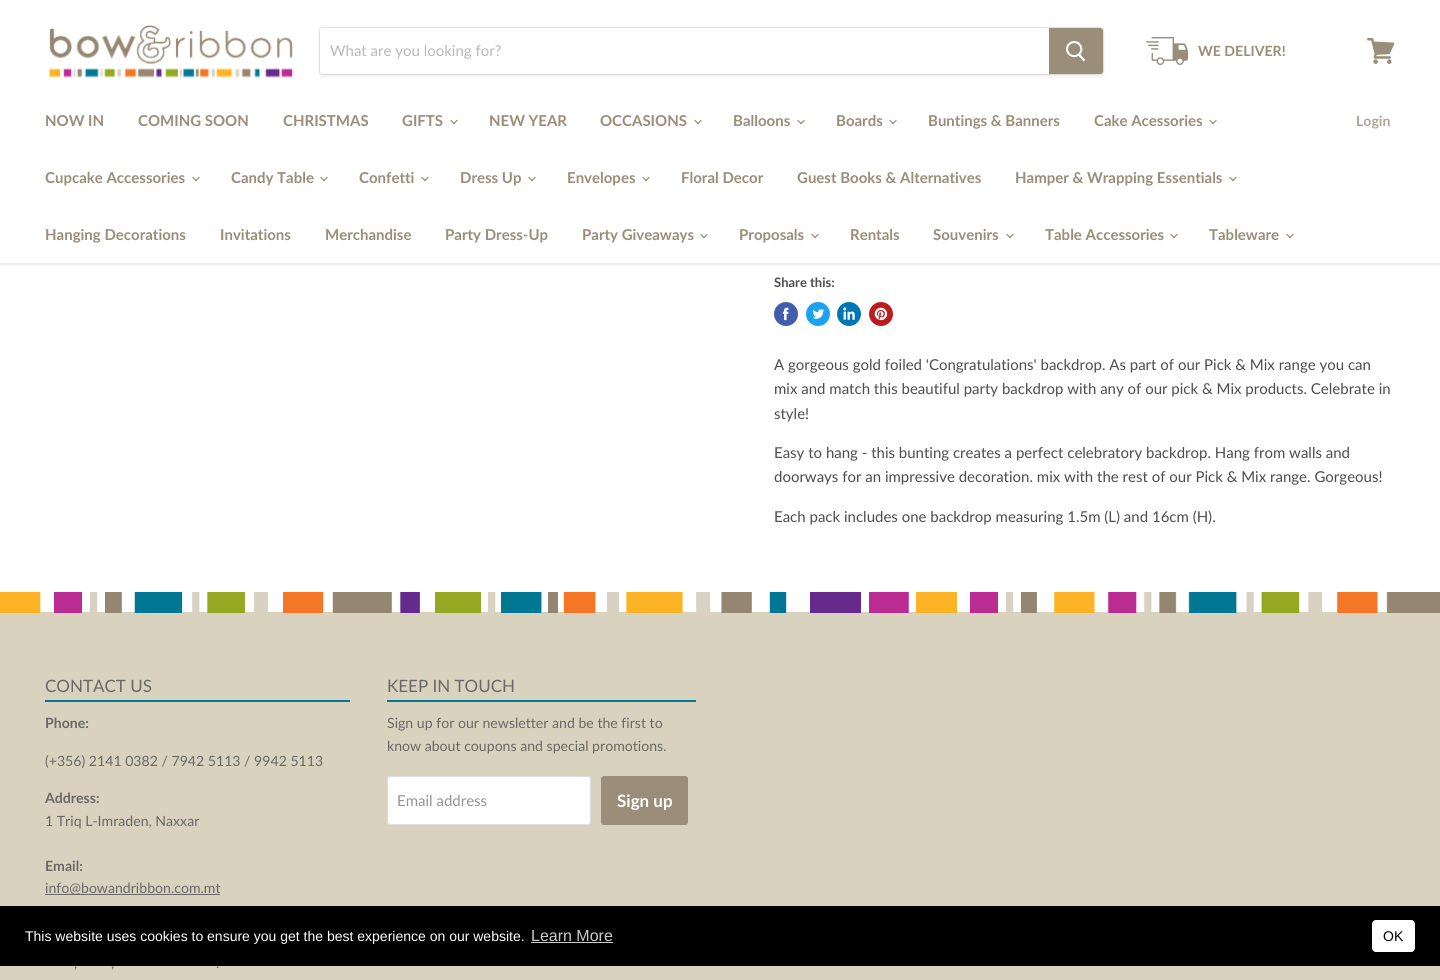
import math
import cairo



def rounded_rect(context, x, y, w, h, r):
    context.new_sub_path()
    for i, (u, v) in enumerate([(x + w - r, y + h - r), (x + r, y + h - r), (x + r, y + r), (x + w - r, y + r)]):
        context.arc(u, v, r, i * math.pi / 2, (i + 1) * math.pi / 2)
    context.close_path()


def draw_shadow(context, x, y, w, h, r, blur, alpha):
    context.push_group_with_content(cairo.Content.ALPHA)
    context.set_operator(cairo.Operator.SOURCE)
    for i in range(15, -16, -2):
        e = blur * i / 6
        if min(w, h) + 2 * e > 0:
            context.set_source_rgba(0, 0, 0, alpha * math.erfc((i - 1) / 8.5) / 2)
            rounded_rect(context, x - e, y - e, w + 2 * e, h + 2 * e, max(0, min(r + e + blur * .6, min(w, h) / 2 + e)))
            context.fill()
    context.mask(context.pop_group())


def draw_image(context, path, x, y, w, h):
    context.save()
    context.set_source_surface(cairo.ImageSurface.create_from_png(path), x, y)
    context.rectangle(x, y, w, h)
    context.fill()
    context.restore()


def draw(context):
    context.set_source_rgb(1, 1, 1)
    context.paint()
    context.set_source_rgb(128 / 255, 128 / 255, 128 / 255)
    draw_shadow(context, 0, 1, 1440, 263, 0, 2, 0.25)
    context.set_source_rgb(1, 1, 1)
    context.rectangle(0, 0, 1440, 263)
    context.fill()
    draw_image(context, "images/1.png", 49, 25, 244, 53)
    context.set_source_rgb(128 / 255, 128 / 255, 128 / 255)
    draw_shadow(context, 319, 29, 785, 48, 4, 1.5, 0.11)
    rounded_rect(context, 319.5, 27.5, 784, 47, 3.5)
    context.set_source_rgba(128 / 255, 128 / 255, 128 / 255, 0.2)
    context.set_line_width(1)
    context.stroke()
    context.set_source_rgb(1, 1, 1)
    context.new_path()
    context.move_to(323, 28)
    context.line_to(1049, 28)
    context.line_to(1049, 74)
    context.line_to(323, 74)
    context.curve_to(321.5, 74, 320, 72.5, 320, 71)
    context.line_to(320, 31)
    context.curve_to(320, 29.5, 321.5, 28, 323, 28)
    context.close_path()
    context.fill()
    context.set_source_rgb(154 / 255, 141 / 255, 121 / 255)
    context.new_path()
    context.move_to(1049.5, 28.5)
    context.line_to(1100, 28.5)
    context.curve_to(1101.5, 28.5, 1102.5, 29.5, 1102.5, 31)
    context.line_to(1102.5, 71)
    context.curve_to(1102.5, 72.5, 1101.5, 73.5, 1100, 73.5)
    context.line_to(1049.5, 73.5)
    context.close_path()
    context.fill_preserve()
    context.stroke()
    draw_image(context, "images/2.png", 1066, 41, 20, 21)
    draw_image(context, "images/3.png", 1146, 37, 42, 28)
    draw_image(context, "images/4.png", 1367, 38, 28, 26)
    draw_image(context, "images/5.png", 450, 119, 8, 6)
    draw_image(context, "images/5.png", 694, 119, 8, 6)
    draw_image(context, "images/5.png", 797, 119, 8, 6)
    draw_image(context, "images/5.png", 889, 119, 8, 6)
    draw_image(context, "images/5.png", 1209, 119, 8, 6)
    draw_image(context, "images/5.png", 192, 176, 8, 6)
    draw_image(context, "images/5.png", 320, 176, 8, 6)
    draw_image(context, "images/5.png", 421, 176, 8, 6)
    draw_image(context, "images/5.png", 528, 176, 8, 6)
    draw_image(context, "images/5.png", 642, 176, 8, 6)
    draw_image(context, "images/5.png", 1229, 176, 8, 6)
    draw_image(context, "images/5.png", 700, 233, 8, 6)
    draw_image(context, "images/5.png", 811, 233, 8, 6)
    draw_image(context, "images/5.png", 1006, 233, 8, 6)
    draw_image(context, "images/5.png", 1170, 233, 8, 6)
    draw_image(context, "images/5.png", 1286, 233, 8, 6)
    context.set_source_rgb(66 / 255, 93 / 255, 171 / 255)
    context.arc(786, 314, 12, 0, 2 * math.pi)
    context.fill()
    draw_image(context, "images/6.png", 782, 307, 7, 14)
    context.set_source_rgb(29 / 255, 161 / 255, 242 / 255)
    context.arc(818, 314, 12, 0, 2 * math.pi)
    context.fill()
    draw_image(context, "images/7.png", 812, 309, 13, 10)
    context.set_source_rgb(0, 119 / 255, 181 / 255)
    context.arc(849, 314, 12, 0, 2 * math.pi)
    context.fill()
    draw_image(context, "images/8.png", 843, 307, 12, 13)
    context.set_source_rgb(189 / 255, 28 / 255, 28 / 255)
    context.arc(881, 314, 12, 0, 2 * math.pi)
    context.fill()
    draw_image(context, "images/9.png", 874, 307, 14, 14)
    context.set_source_rgb(217 / 255, 210 / 255, 191 / 255)
    context.rectangle(0, 612, 1440, 368)
    context.fill()
    draw_image(context, "images/10.png", 0, 592, 1440, 21)
    context.set_source_rgb(1 / 255, 121 / 255, 146 / 255)
    context.rectangle(45, 700, 305, 2)
    context.fill()
    context.set_source_rgb(104 / 255, 104 / 255, 104 / 255)
    context.rectangle(45, 894, 175, 1)
    context.fill()
    context.set_source_rgb(1 / 255, 121 / 255, 146 / 255)
    context.rectangle(387, 700, 309, 2)
    context.fill()
    context.set_source_rgb(1, 1, 1)
    rounded_rect(context, 387.5, 776.5, 203, 48, 2.5)
    context.fill_preserve()
    context.set_source_rgb(221 / 255, 221 / 255, 221 / 255)
    context.stroke()
    context.set_source_rgb(154 / 255, 141 / 255, 121 / 255)
    rounded_rect(context, 601.5, 776.5, 86, 48, 2.5)
    context.fill_preserve()
    context.stroke()
    context.set_source_rgb(0, 0, 0)
    context.rectangle(0, 906, 1440, 60)
    context.fill()
    context.set_source_rgb(204 / 255, 204 / 255, 204 / 255)
    context.rectangle(531, 942, 82, 1)
    context.fill()
    context.set_source_rgb(1, 1, 1)
    rounded_rect(context, 1372, 920, 43, 32, 4)
    context.fill()
    context.select_font_face("Lato")
    context.set_font_size(15)
    context.set_source_rgb(184 / 255, 184 / 255, 184 / 255)
    context.move_to(330, 56)
    context.show_text("What are you looking for?")
    context.select_font_face("Lato", cairo.FontSlant.NORMAL, cairo.FontWeight.BOLD)
    context.set_font_size(14.1)
    context.set_source_rgb(154 / 255, 141 / 255, 121 / 255)
    context.move_to(1198, 56)
    context.show_text("WE DELIVER!")
    context.set_font_size(15)
    context.move_to(45, 126)
    context.show_text("NOW IN")
    context.move_to(138, 126)
    context.show_text("COMING SOON")
    context.move_to(283, 126)
    context.show_text("CHRISTMAS")
    context.move_to(402, 126)
    context.show_text("GIFTS")
    context.move_to(489, 126)
    context.show_text("NEW YEAR")
    context.move_to(600, 126)
    context.show_text("OCCASIONS")
    context.move_to(733, 126)
    context.show_text("Balloons")
    context.move_to(836, 126)
    context.show_text("Boards")
    context.move_to(928, 126)
    context.show_text("Buntings & Banners")
    context.move_to(1094, 126)
    context.show_text("Cake Acessories")
    context.move_to(45, 183)
    context.show_text("Cupcake Accessories")
    context.move_to(231, 183)
    context.show_text("Candy Table")
    context.move_to(359, 183)
    context.show_text("Confetti")
    context.move_to(460, 183)
    context.show_text("Dress Up")
    context.move_to(567, 183)
    context.show_text("Envelopes")
    context.move_to(681, 183)
    context.show_text("Floral Decor")
    context.move_to(797, 183)
    context.show_text("Guest Books & Alternatives")
    context.move_to(1015, 183)
    context.show_text("Hamper & Wrapping Essentials")
    context.move_to(45, 240)
    context.show_text("Hanging Decorations")
    context.move_to(220, 240)
    context.show_text("Invitations")
    context.move_to(325, 240)
    context.show_text("Merchandise")
    context.move_to(445, 240)
    context.show_text("Party Dress-Up")
    context.move_to(582, 240)
    context.show_text("Party Giveaways")
    context.move_to(739, 240)
    context.show_text("Proposals")
    context.move_to(850, 240)
    context.show_text("Rentals")
    context.move_to(933, 240)
    context.show_text("Souvenirs")
    context.move_to(1045, 240)
    context.show_text("Table Accessories")
    context.move_to(1209, 240)
    context.show_text("Tableware")
    context.set_font_size(14.1)
    context.set_source_rgb(174 / 255, 164 / 255, 148 / 255)
    context.move_to(1356, 126)
    context.show_text("Login")
    context.set_font_size(13)
    context.set_source_rgb(77 / 255, 77 / 255, 77 / 255)
    context.move_to(774, 287)
    context.show_text("Share this:")
    context.select_font_face("Lato")
    context.set_font_size(15)
    context.move_to(774, 370)
    context.show_text("A gorgeous gold foiled 'Congratulations' backdrop. As part of our Pick & Mix range you can")
    context.move_to(774, 394)
    context.show_text("mix and match this beautiful party backdrop with any of our pick & Mix products. Celebrate in")
    context.move_to(774, 419)
    context.show_text("style!")
    context.move_to(774, 458)
    context.show_text("Easy to hang - this bunting creates a perfect celebratory backdrop. Hang from walls and")
    context.move_to(774, 482)
    context.show_text("doorways for an impressive decoration. mix with the rest of our Pick & Mix range. Gorgeous!")
    context.move_to(774, 522)
    context.show_text("Each pack includes one backdrop measuring 1.5m (L) and 16cm (H).")
    context.set_font_size(17)
    context.set_source_rgb(104 / 255, 104 / 255, 104 / 255)
    context.move_to(45, 692)
    context.show_text("CONTACT US")
    context.select_font_face("Lato", cairo.FontSlant.NORMAL, cairo.FontWeight.BOLD)
    context.set_font_size(14.1)
    context.move_to(45, 728)
    context.show_text("Phone:")
    context.select_font_face("Lato")
    context.move_to(45, 766)
    context.show_text("(+356) 2141 0382 / 7942 5113 / 9942 5113")
    context.select_font_face("Lato", cairo.FontSlant.NORMAL, cairo.FontWeight.BOLD)
    context.move_to(45, 803)
    context.show_text("Address:")
    context.select_font_face("Lato")
    context.move_to(45, 826)
    context.show_text("1 Triq L-Imraden, Naxxar")
    context.select_font_face("Lato", cairo.FontSlant.NORMAL, cairo.FontWeight.BOLD)
    context.move_to(45, 871)
    context.show_text("Email:")
    context.select_font_face("Lato")
    context.move_to(45, 893)
    context.show_text("info@bowandribbon.com.mt")
    context.move_to(74, 968)
    context.show_text(",")
    context.move_to(111, 968)
    context.show_text(",")
    context.move_to(216, 968)
    context.show_text(".")
    context.set_font_size(17)
    context.move_to(387, 692)
    context.show_text("KEEP IN TOUCH")
    context.set_font_size(14.1)
    context.move_to(387, 728)
    context.show_text("Sign up for our newsletter and be the first to")
    context.move_to(387, 751)
    context.show_text("know about coupons and special promotions.")
    context.set_font_size(15)
    context.set_source_rgb(148 / 255, 148 / 255, 148 / 255)
    context.move_to(397, 806)
    context.show_text("Email address")
    context.select_font_face("Lato", cairo.FontSlant.NORMAL, cairo.FontWeight.BOLD)
    context.set_font_size(17)
    context.set_source_rgb(1, 1, 1)
    context.move_to(617, 807)
    context.show_text("Sign up")
    context.select_font_face("Liberation Sans")
    context.set_font_size(14)
    context.move_to(25, 941)
    context.show_text("This website uses cookies to ensure you get the best experience on our website.")
    context.set_font_size(16)
    context.set_source_rgb(204 / 255, 204 / 255, 204 / 255)
    context.move_to(531, 941)
    context.show_text("Learn More")
    context.set_font_size(14)
    context.set_source_rgb(0, 0, 0)
    context.move_to(1383, 941)
    context.show_text("OK")


surface = cairo.ImageSurface(cairo.Format.RGB24, 1440, 980)
context = cairo.Context(surface)
options = cairo.FontOptions()
options.set_hint_metrics(cairo.HintMetrics.OFF)
options.set_hint_style(cairo.HintStyle.NONE)
context.set_font_options(options)
context.set_miter_limit(4)
draw(context)
surface.write_to_png("out.png")
